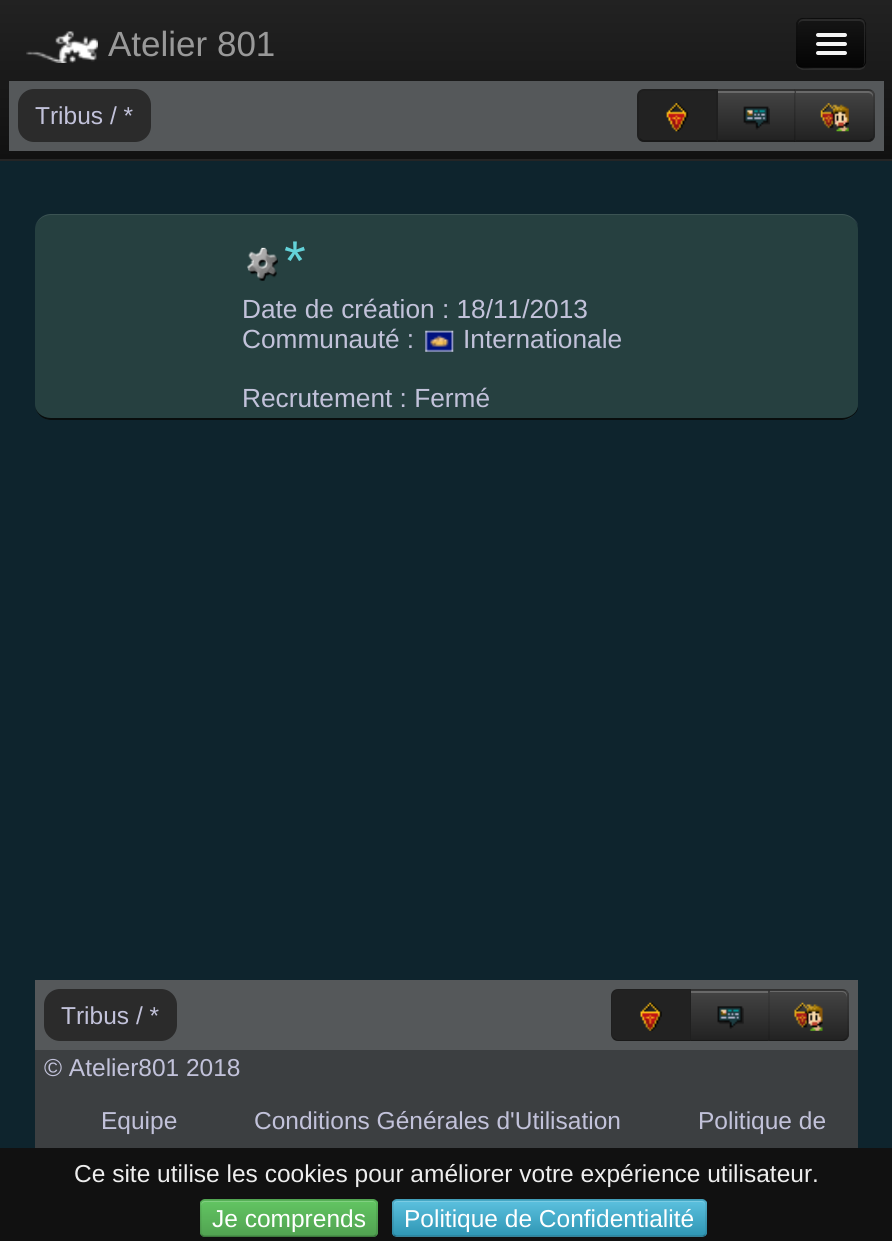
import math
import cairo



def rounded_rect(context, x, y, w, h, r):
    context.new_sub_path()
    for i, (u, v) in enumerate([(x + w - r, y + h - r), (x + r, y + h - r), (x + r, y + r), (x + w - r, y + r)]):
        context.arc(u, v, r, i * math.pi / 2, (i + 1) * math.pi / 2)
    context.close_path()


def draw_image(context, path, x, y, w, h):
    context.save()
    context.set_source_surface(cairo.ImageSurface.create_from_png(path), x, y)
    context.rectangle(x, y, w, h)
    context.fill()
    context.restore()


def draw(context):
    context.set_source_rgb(14 / 255, 36 / 255, 45 / 255)
    context.paint()
    gradient = cairo.LinearGradient(446, 0, 446, 159)
    gradient.add_color_stop_rgba(0, 34 / 255, 34 / 255, 34 / 255, 1)
    gradient.add_color_stop_rgba(1, 17 / 255, 17 / 255, 17 / 255, 1)
    context.set_source(gradient)
    context.rectangle(0, 0, 892, 159)
    context.fill()
    context.set_source_rgb(37 / 255, 37 / 255, 37 / 255)
    context.rectangle(0, 159, 892, 2)
    context.fill()
    draw_image(context, "images/1.png", 26, 31, 72, 32)
    context.set_source_rgb(44 / 255, 44 / 255, 44 / 255)
    context.new_path()
    context.move_to(796, 24)
    context.line_to(796, 64)
    context.line_to(797, 67)
    context.curve_to(798, 68, 800, 69, 802, 70)
    context.line_to(860, 70)
    context.curve_to(863, 69, 865, 68, 865, 66)
    context.line_to(866, 63)
    context.curve_to(864, 70, 855, 68, 850, 68)
    context.line_to(813, 68)
    context.curve_to(809, 68, 802, 70, 798, 66)
    context.line_to(796, 63)
    context.close_path()
    context.fill()
    context.set_source_rgb(14 / 255, 14 / 255, 14 / 255)
    rounded_rect(context, 796, 18, 70, 50, 7)
    context.fill()
    context.save()
    rounded_rect(context, 796, 18, 70, 50, 7)
    context.clip()
    gradient = cairo.LinearGradient(831, 19, 831, 67)
    gradient.add_color_stop_rgba(0, 21 / 255, 21 / 255, 21 / 255, 1)
    gradient.add_color_stop_rgba(1, 4 / 255, 4 / 255, 4 / 255, 1)
    context.set_source(gradient)
    context.rectangle(796, 19, 70, 48)
    context.fill()
    context.restore()
    context.set_source_rgba(1, 1, 1, 0.1)
    context.new_path()
    context.move_to(803, 21)
    context.line_to(859, 21)
    context.curve_to(862, 21, 864, 23, 864, 26)
    context.line_to(864, 63)
    context.line_to(863, 66)
    context.curve_to(866, 63, 865, 59, 865, 56)
    context.line_to(865, 43)
    context.curve_to(865, 15, 869, 19, 841, 19)
    context.line_to(812, 19)
    context.curve_to(805, 19, 798, 17, 798, 26)
    context.curve_to(798, 23, 800, 21, 803, 21)
    context.close_path()
    context.fill()
    context.new_path()
    context.move_to(863.5, 65.5)
    context.curve_to(862.5, 66.5, 861, 67.5, 859, 67.5)
    context.line_to(803, 67.5)
    context.curve_to(801.5, 67.5, 800, 66.5, 799, 65.5)
    context.set_source_rgba(0, 0, 0, 0.25)
    context.set_line_width(1.8)
    context.stroke()
    context.new_path()
    context.move_to(799, 65.5)
    context.curve_to(798, 64.5, 797, 63, 797, 61)
    context.line_to(797, 24.5)
    context.curve_to(797, 23, 798, 21.5, 799, 20)
    context.curve_to(800, 19, 801.5, 18.5, 803, 18.5)
    context.line_to(859, 18.5)
    context.curve_to(861, 18.5, 862.5, 19, 863.5, 20)
    context.curve_to(864.5, 21.5, 865.5, 23, 865.5, 24.5)
    context.line_to(865.5, 61)
    context.curve_to(865.5, 63, 864.5, 64.5, 863.5, 65.5)
    context.set_source_rgba(0, 0, 0, 0.1)
    context.stroke()
    context.set_source_rgb(11 / 255, 11 / 255, 11 / 255)
    context.new_path()
    context.move_to(816, 36.5)
    context.curve_to(815, 40, 821.5, 39, 822.5, 39)
    context.line_to(840.5, 39)
    context.curve_to(841, 39, 849, 40, 846.5, 36)
    context.line_to(845.5, 36.5)
    context.line_to(817, 36.5)
    context.close_path()
    context.fill()
    context.set_source_rgb(245 / 255, 245 / 255, 245 / 255)
    rounded_rect(context, 816, 33, 31, 4, 2)
    context.fill()
    context.set_source_rgb(8 / 255, 8 / 255, 8 / 255)
    context.new_path()
    context.move_to(816, 45)
    context.curve_to(814.5, 49, 821.5, 48, 822.5, 48)
    context.line_to(840.5, 48)
    context.curve_to(841.5, 48, 846.5, 49, 847, 46.5)
    context.line_to(846.5, 45)
    context.line_to(845.5, 45.5)
    context.curve_to(843, 46, 817, 46, 816, 45)
    context.close_path()
    context.fill()
    context.set_source_rgb(245 / 255, 245 / 255, 245 / 255)
    rounded_rect(context, 816, 42, 31, 4, 2)
    context.fill()
    rounded_rect(context, 816, 51, 31, 4, 2)
    context.fill()
    context.set_source_rgb(85 / 255, 88 / 255, 90 / 255)
    context.rectangle(9, 81, 875, 70)
    context.fill()
    context.set_source_rgb(43 / 255, 43 / 255, 43 / 255)
    rounded_rect(context, 18, 89, 133, 53, 16)
    context.fill()
    context.set_source_rgb(54 / 255, 54 / 255, 54 / 255)
    context.rectangle(794, 90, 1, 1)
    context.fill()
    context.set_source_rgb(49 / 255, 49 / 255, 49 / 255)
    context.new_path()
    context.move_to(716, 89)
    context.line_to(796, 89)
    context.line_to(794, 91)
    context.line_to(718, 91)
    context.close_path()
    context.fill()
    gradient = cairo.LinearGradient(756, 91, 756, 189)
    gradient.add_color_stop_rgba(0, 68 / 255, 68 / 255, 68 / 255, 1)
    gradient.add_color_stop_rgba(0.5, 34 / 255, 34 / 255, 34 / 255, 1)
    gradient.add_color_stop_rgba(1, 34 / 255, 34 / 255, 34 / 255, 1)
    context.set_source(gradient)
    context.rectangle(718, 93, 77, 48)
    context.fill()
    context.set_source_rgb(105 / 255, 105 / 255, 105 / 255)
    context.rectangle(718, 91, 77, 2)
    context.fill()
    context.set_source_rgba(0, 0, 0, 0.1)
    context.new_path()
    context.move_to(796, 89)
    context.line_to(796, 142)
    context.line_to(794, 140)
    context.line_to(794, 91)
    context.close_path()
    context.fill()
    context.set_source_rgb(25 / 255, 25 / 255, 25 / 255)
    context.new_path()
    context.move_to(796, 142)
    context.line_to(716, 142)
    context.line_to(718, 140)
    context.line_to(794, 140)
    context.close_path()
    context.fill()
    context.set_source_rgb(34 / 255, 34 / 255, 34 / 255)
    context.new_path()
    context.move_to(644, 89)
    context.line_to(718, 89)
    context.line_to(718, 142)
    context.line_to(644, 142)
    context.curve_to(640, 142, 637, 139, 637, 135)
    context.line_to(637, 96)
    context.curve_to(637, 92, 640, 89, 644, 89)
    context.close_path()
    context.fill()
    context.set_source_rgba(0, 0, 0, 0.1)
    context.new_path()
    context.move_to(644, 91)
    context.curve_to(642, 91, 641, 92, 640, 93)
    context.line_to(639, 91)
    context.line_to(642, 89)
    context.line_to(718, 89)
    context.line_to(716, 91)
    context.close_path()
    context.fill()
    context.set_source_rgb(31 / 255, 31 / 255, 31 / 255)
    context.new_path()
    context.move_to(718, 89)
    context.line_to(716, 91)
    context.line_to(716, 140)
    context.line_to(718, 142)
    context.close_path()
    context.fill()
    context.set_source_rgba(0, 0, 0, 0.25)
    context.new_path()
    context.move_to(718, 142)
    context.line_to(642, 142)
    context.line_to(639, 140)
    context.line_to(640, 138)
    context.line_to(643, 140)
    context.line_to(716, 140)
    context.close_path()
    context.fill()
    context.set_source_rgba(0, 0, 0, 0.1)
    context.new_path()
    context.move_to(637, 96)
    context.line_to(637, 135)
    context.curve_to(637, 137, 638, 139, 639, 140)
    context.line_to(640, 138)
    context.curve_to(639, 138, 639, 136, 639, 135)
    context.line_to(639, 96)
    context.curve_to(639, 95, 639, 93, 640, 93)
    context.line_to(639, 91)
    context.curve_to(638, 92, 637, 94, 637, 96)
    context.close_path()
    context.fill()
    draw_image(context, "images/2.png", 666, 103, 23, 29)
    draw_image(context, "images/3.png", 743, 106, 27, 24)
    context.set_source_rgb(54 / 255, 54 / 255, 54 / 255)
    context.new_path()
    context.move_to(795, 89)
    context.line_to(868, 89)
    context.curve_to(872, 89, 875, 92, 875, 96)
    context.line_to(875, 135)
    context.curve_to(875, 139, 872, 142, 868, 142)
    context.line_to(795, 142)
    context.close_path()
    context.fill()
    context.save()
    context.new_path()
    context.move_to(795, 89)
    context.line_to(868, 89)
    context.curve_to(872, 89, 875, 92, 875, 96)
    context.line_to(875, 135)
    context.curve_to(875, 139, 872, 142, 868, 142)
    context.line_to(795, 142)
    context.close_path()
    context.clip()
    gradient = cairo.LinearGradient(835, 91, 835, 189)
    gradient.add_color_stop_rgba(0, 68 / 255, 68 / 255, 68 / 255, 1)
    gradient.add_color_stop_rgba(0.5, 34 / 255, 34 / 255, 34 / 255, 1)
    gradient.add_color_stop_rgba(1, 34 / 255, 34 / 255, 34 / 255, 1)
    context.set_source(gradient)
    context.new_path()
    context.move_to(795, 91)
    context.line_to(875, 91)
    context.line_to(875, 135)
    context.curve_to(875, 139, 872, 142, 868, 142)
    context.line_to(795, 142)
    context.close_path()
    context.fill()
    context.restore()
    context.set_source_rgba(1, 1, 1, 0.2)
    context.new_path()
    context.move_to(796, 93)
    context.line_to(868, 93)
    context.curve_to(871, 93, 873, 95, 873, 98)
    context.line_to(873, 96)
    context.curve_to(873, 93, 871, 91, 868, 91)
    context.line_to(796, 91)
    context.close_path()
    context.fill()
    context.set_source_rgba(0, 0, 0, 0.1)
    context.new_path()
    context.move_to(794, 89)
    context.line_to(870, 89)
    context.line_to(873, 91)
    context.line_to(872, 93)
    context.line_to(869, 91)
    context.line_to(796, 91)
    context.close_path()
    context.fill()
    context.new_path()
    context.move_to(875, 135)
    context.line_to(875, 96)
    context.curve_to(875, 94, 874, 92, 873, 91)
    context.line_to(872, 93)
    context.curve_to(873, 93, 873, 95, 873, 96)
    context.line_to(873, 135)
    context.curve_to(873, 136, 873, 138, 872, 138)
    context.line_to(873, 140)
    context.curve_to(874, 139, 875, 137, 875, 135)
    context.close_path()
    context.fill()
    context.set_source_rgba(0, 0, 0, 0.25)
    context.new_path()
    context.move_to(873, 140)
    context.line_to(870, 142)
    context.line_to(794, 142)
    context.line_to(796, 140)
    context.line_to(869, 140)
    context.line_to(872, 138)
    context.close_path()
    context.fill()
    context.set_source_rgba(0, 0, 0, 0.1)
    context.new_path()
    context.move_to(796, 91)
    context.line_to(794, 89)
    context.line_to(794, 142)
    context.line_to(796, 140)
    context.close_path()
    context.fill()
    draw_image(context, "images/4.png", 820, 103, 29, 29)
    context.set_source_rgb(38 / 255, 64 / 255, 64 / 255)
    rounded_rect(context, 35, 214, 823, 206, 16)
    context.fill()
    context.set_source_rgba(1, 1, 1, 0.1)
    context.new_path()
    context.move_to(51, 214)
    context.line_to(842, 214)
    context.curve_to(848, 214, 858, 219, 858, 226)
    context.curve_to(856, 220, 849, 215, 842, 215)
    context.line_to(51, 215)
    context.curve_to(42, 215, 35, 222, 35, 229)
    context.curve_to(35, 221, 42, 214, 51, 214)
    context.close_path()
    context.fill()
    context.set_source_rgba(0, 0, 0, 0.8)
    context.new_path()
    context.move_to(51, 420)
    context.line_to(842, 420)
    context.curve_to(848, 420, 858, 414, 858, 407)
    context.curve_to(856, 414, 849, 418, 842, 418)
    context.line_to(51, 418)
    context.curve_to(42, 418, 35, 412, 35, 404)
    context.curve_to(35, 413, 42, 420, 51, 420)
    context.close_path()
    context.fill()
    draw_image(context, "images/5.png", 247, 247, 31, 34)
    draw_image(context, "images/6.png", 425, 330, 29, 22)
    context.set_source_rgb(60 / 255, 63 / 255, 65 / 255)
    context.rectangle(35, 1050, 823, 98)
    context.fill()
    context.set_source_rgb(85 / 255, 88 / 255, 90 / 255)
    context.rectangle(35, 980, 823, 70)
    context.fill()
    context.set_source_rgb(43 / 255, 43 / 255, 43 / 255)
    rounded_rect(context, 44, 989, 133, 52, 16)
    context.fill()
    context.set_source_rgb(49 / 255, 49 / 255, 49 / 255)
    context.new_path()
    context.move_to(690, 989)
    context.line_to(770, 989)
    context.line_to(768, 990)
    context.line_to(691, 990)
    context.close_path()
    context.fill()
    context.set_source_rgb(25 / 255, 25 / 255, 25 / 255)
    context.new_path()
    context.move_to(770, 1041)
    context.line_to(690, 1041)
    context.line_to(691, 1040)
    context.line_to(768, 1040)
    context.close_path()
    context.fill()
    context.set_source_rgb(34 / 255, 34 / 255, 34 / 255)
    context.new_path()
    context.move_to(618, 989)
    context.line_to(691, 989)
    context.line_to(691, 1041)
    context.line_to(618, 1041)
    context.curve_to(614, 1041, 611, 1038, 611, 1034)
    context.line_to(611, 996)
    context.curve_to(611, 992, 614, 989, 618, 989)
    context.close_path()
    context.fill()
    context.set_source_rgba(0, 0, 0, 0.1)
    context.new_path()
    context.move_to(618, 989)
    context.curve_to(616, 989, 614, 990, 613, 991)
    context.line_to(614, 992)
    context.line_to(617, 990)
    context.line_to(690, 990)
    context.line_to(691, 989)
    context.close_path()
    context.fill()
    context.set_source_rgb(31 / 255, 31 / 255, 31 / 255)
    context.new_path()
    context.move_to(691, 1041)
    context.line_to(691, 989)
    context.line_to(690, 990)
    context.line_to(690, 1040)
    context.close_path()
    context.fill()
    context.set_source_rgba(0, 0, 0, 0.25)
    context.new_path()
    context.move_to(691, 1041)
    context.line_to(690, 1040)
    context.line_to(617, 1040)
    context.line_to(614, 1038)
    context.line_to(613, 1039)
    context.curve_to(614, 1040, 616, 1041, 618, 1041)
    context.close_path()
    context.fill()
    context.set_source_rgba(0, 0, 0, 0.1)
    context.new_path()
    context.move_to(613, 991)
    context.curve_to(612, 992, 611, 994, 611, 996)
    context.line_to(611, 1034)
    context.curve_to(611, 1036, 612, 1038, 613, 1039)
    context.line_to(614, 1038)
    context.curve_to(613, 1037, 612, 1036, 612, 1034)
    context.line_to(612, 996)
    context.curve_to(612, 994, 613, 993, 614, 992)
    context.close_path()
    context.fill()
    draw_image(context, "images/7.png", 640, 1002, 22, 29)
    context.set_source_rgb(54 / 255, 54 / 255, 54 / 255)
    context.rectangle(691, 990, 77, 1)
    context.fill()
    gradient = cairo.LinearGradient(730, 991, 730, 1089)
    gradient.add_color_stop_rgba(0, 68 / 255, 68 / 255, 68 / 255, 1)
    gradient.add_color_stop_rgba(0.5, 34 / 255, 34 / 255, 34 / 255, 1)
    gradient.add_color_stop_rgba(1, 34 / 255, 34 / 255, 34 / 255, 1)
    context.set_source(gradient)
    context.rectangle(691, 993, 77, 47)
    context.fill()
    context.set_source_rgb(105 / 255, 105 / 255, 105 / 255)
    context.rectangle(691, 991, 77, 2)
    context.fill()
    draw_image(context, "images/8.png", 717, 1006, 27, 23)
    context.set_source_rgb(54 / 255, 54 / 255, 54 / 255)
    context.new_path()
    context.move_to(768, 989)
    context.line_to(842, 989)
    context.curve_to(846, 989, 849, 992, 849, 996)
    context.line_to(849, 1034)
    context.curve_to(849, 1038, 846, 1041, 842, 1041)
    context.line_to(768, 1041)
    context.close_path()
    context.fill()
    context.save()
    context.new_path()
    context.move_to(768, 989)
    context.line_to(842, 989)
    context.curve_to(846, 989, 849, 992, 849, 996)
    context.line_to(849, 1034)
    context.curve_to(849, 1038, 846, 1041, 842, 1041)
    context.line_to(768, 1041)
    context.close_path()
    context.clip()
    gradient = cairo.LinearGradient(809, 991, 809, 1089)
    gradient.add_color_stop_rgba(0, 68 / 255, 68 / 255, 68 / 255, 1)
    gradient.add_color_stop_rgba(0.5, 34 / 255, 34 / 255, 34 / 255, 1)
    gradient.add_color_stop_rgba(1, 34 / 255, 34 / 255, 34 / 255, 1)
    context.set_source(gradient)
    context.new_path()
    context.move_to(768, 991)
    context.line_to(849, 991)
    context.line_to(849, 1034)
    context.curve_to(849, 1038, 846, 1041, 842, 1041)
    context.line_to(768, 1041)
    context.close_path()
    context.fill()
    context.restore()
    context.set_source_rgb(105 / 255, 105 / 255, 105 / 255)
    context.new_path()
    context.move_to(770, 992)
    context.line_to(842, 992)
    context.curve_to(845, 992, 847, 995, 847, 998)
    context.line_to(847, 996)
    context.curve_to(847, 993, 845, 991, 842, 991)
    context.line_to(770, 991)
    context.close_path()
    context.fill()
    context.set_source_rgba(0, 0, 0, 0.1)
    context.new_path()
    context.move_to(770, 990)
    context.line_to(843, 990)
    context.line_to(846, 992)
    context.line_to(847, 991)
    context.curve_to(846, 990, 844, 989, 842, 989)
    context.line_to(768, 989)
    context.close_path()
    context.fill()
    context.new_path()
    context.move_to(847, 991)
    context.line_to(849, 994)
    context.line_to(849, 1036)
    context.line_to(847, 1039)
    context.line_to(846, 1038)
    context.curve_to(846, 1037, 847, 1036, 847, 1034)
    context.line_to(847, 996)
    context.curve_to(847, 994, 846, 993, 846, 992)
    context.close_path()
    context.fill()
    context.set_source_rgba(0, 0, 0, 0.25)
    context.new_path()
    context.move_to(847, 1039)
    context.curve_to(846, 1040, 844, 1041, 842, 1041)
    context.line_to(768, 1041)
    context.line_to(770, 1040)
    context.line_to(843, 1040)
    context.line_to(846, 1038)
    context.close_path()
    context.fill()
    context.set_source_rgba(0, 0, 0, 0.1)
    context.new_path()
    context.move_to(768, 989)
    context.line_to(770, 990)
    context.line_to(770, 1040)
    context.line_to(768, 1041)
    context.close_path()
    context.fill()
    draw_image(context, "images/9.png", 794, 1002, 29, 29)
    context.set_source_rgb(17 / 255, 17 / 255, 17 / 255)
    context.rectangle(0, 1148, 892, 93)
    context.fill()
    context.set_source_rgb(91 / 255, 183 / 255, 91 / 255)
    rounded_rect(context, 200, 1199, 178, 38, 5)
    context.fill()
    context.save()
    rounded_rect(context, 200, 1199, 178, 38, 5)
    context.clip()
    gradient = cairo.LinearGradient(289, 1201, 289, 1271)
    gradient.add_color_stop_rgba(0, 98 / 255, 196 / 255, 98 / 255, 1)
    gradient.add_color_stop_rgba(0.5, 81 / 255, 163 / 255, 81 / 255, 1)
    gradient.add_color_stop_rgba(1, 81 / 255, 163 / 255, 81 / 255, 1)
    context.set_source(gradient)
    context.new_path()
    context.move_to(200, 1201)
    context.line_to(378, 1201)
    context.line_to(378, 1232)
    context.curve_to(378, 1235, 376, 1237, 373, 1237)
    context.line_to(205, 1237)
    context.curve_to(202, 1237, 200, 1235, 200, 1232)
    context.close_path()
    context.fill()
    context.restore()
    context.set_source_rgb(129 / 255, 208 / 255, 129 / 255)
    context.new_path()
    context.move_to(205, 1202)
    context.line_to(373, 1202)
    context.curve_to(375, 1202, 376, 1204, 376, 1206)
    context.line_to(376, 1205)
    context.curve_to(376, 1203, 374, 1201, 372, 1201)
    context.line_to(205, 1201)
    context.curve_to(203, 1201, 201, 1203, 201, 1205)
    context.line_to(201, 1206)
    context.curve_to(201, 1204, 203, 1202, 205, 1202)
    context.close_path()
    context.fill()
    context.new_path()
    context.move_to(376, 1235)
    context.curve_to(375, 1236, 374, 1236.5, 373, 1236.5)
    context.line_to(205, 1236.5)
    context.curve_to(203.5, 1236.5, 202.5, 1236, 201.5, 1235)
    context.set_source_rgba(0, 0, 0, 0.25)
    context.stroke()
    context.new_path()
    context.move_to(201.5, 1235)
    context.curve_to(201, 1234.5, 200.5, 1233, 200.5, 1232)
    context.line_to(200.5, 1204)
    context.curve_to(200.5, 1203, 201, 1201.5, 201.5, 1201)
    context.curve_to(202.5, 1200, 203.5, 1199.5, 205, 1199.5)
    context.line_to(373, 1199.5)
    context.curve_to(374, 1199.5, 375, 1200, 376, 1201)
    context.curve_to(376.5, 1201.5, 377, 1203, 377, 1204)
    context.line_to(377, 1232)
    context.curve_to(377, 1233, 376.5, 1234.5, 376, 1235)
    context.set_source_rgba(0, 0, 0, 0.1)
    context.stroke()
    context.set_source_rgb(73 / 255, 175 / 255, 205 / 255)
    rounded_rect(context, 392, 1199, 315, 38, 5)
    context.fill()
    context.save()
    rounded_rect(context, 392, 1199, 315, 38, 5)
    context.clip()
    gradient = cairo.LinearGradient(550, 1201, 550, 1236)
    gradient.add_color_stop_rgba(0, 91 / 255, 192 / 255, 222 / 255, 1)
    gradient.add_color_stop_rgba(1, 47 / 255, 150 / 255, 180 / 255, 1)
    context.set_source(gradient)
    context.rectangle(392, 1201, 315, 35)
    context.fill()
    context.restore()
    context.set_source_rgb(123 / 255, 204 / 255, 228 / 255)
    context.new_path()
    context.move_to(397, 1202)
    context.line_to(702, 1202)
    context.curve_to(704, 1202, 705, 1204, 705, 1206)
    context.curve_to(705, 1203, 704, 1201, 701, 1201)
    context.line_to(398, 1201)
    context.line_to(395, 1202)
    context.curve_to(394, 1203, 394, 1205, 394, 1206)
    context.curve_to(394, 1204, 395, 1202, 397, 1202)
    context.close_path()
    context.fill()
    context.new_path()
    context.move_to(705, 1235)
    context.curve_to(704, 1236, 703, 1236.5, 702, 1236.5)
    context.line_to(397, 1236.5)
    context.curve_to(396, 1236.5, 395, 1236, 394, 1235)
    context.set_source_rgba(0, 0, 0, 0.25)
    context.stroke()
    context.new_path()
    context.move_to(394, 1235)
    context.curve_to(391.5, 1232.5, 393, 1225.5, 393, 1222.5)
    context.line_to(393, 1213.5)
    context.curve_to(393, 1210, 391, 1199.5, 397, 1199.5)
    context.line_to(702, 1199.5)
    context.curve_to(708, 1199.5, 706, 1210, 706, 1213.5)
    context.line_to(706, 1222.5)
    context.curve_to(706, 1225.5, 707.5, 1232.5, 705, 1235)
    context.set_source_rgba(0, 0, 0, 0.1)
    context.stroke()
    context.select_font_face("Liberation Sans")
    context.set_font_size(35)
    context.set_source_rgb(153 / 255, 153 / 255, 153 / 255)
    context.move_to(108, 56)
    context.show_text("Atelier 801")
    context.set_font_size(24.5)
    context.set_source_rgb(194 / 255, 194 / 255, 218 / 255)
    context.move_to(35, 124)
    context.show_text("Tribus / *")
    context.set_font_size(56)
    context.set_source_rgb(99 / 255, 210 / 255, 217 / 255)
    context.move_to(284, 280)
    context.show_text("*")
    context.set_font_size(26.25)
    context.set_source_rgb(194 / 255, 194 / 255, 218 / 255)
    context.move_to(242, 318)
    context.show_text("Date de création : 18/11/2013")
    context.move_to(242, 348)
    context.show_text("Communauté :")
    context.move_to(463, 348)
    context.show_text("Internationale")
    context.move_to(242, 407)
    context.show_text("Recrutement : Fermé")
    context.set_font_size(24.5)
    context.move_to(61, 1024)
    context.show_text("Tribus / *")
    context.move_to(44, 1076)
    context.show_text("© Atelier801 2018")
    context.move_to(101, 1129)
    context.show_text("Equipe")
    context.move_to(254, 1129)
    context.show_text("Conditions Générales d'Utilisation")
    context.move_to(698, 1129)
    context.show_text("Politique de")
    context.set_source_rgb(238 / 255, 238 / 255, 238 / 255)
    context.move_to(74, 1182)
    context.show_text("Ce site utilise les cookies pour améliorer votre expérience utilisateur.")
    context.set_source_rgb(1, 1, 1)
    context.move_to(212, 1227)
    context.show_text("Je comprends")
    context.move_to(404, 1227)
    context.show_text("Politique de Confidentialité")


surface = cairo.ImageSurface(cairo.Format.RGB24, 892, 1241)
context = cairo.Context(surface)
options = cairo.FontOptions()
options.set_hint_metrics(cairo.HintMetrics.OFF)
options.set_hint_style(cairo.HintStyle.NONE)
context.set_font_options(options)
context.set_miter_limit(4)
draw(context)
surface.write_to_png("out.png")
